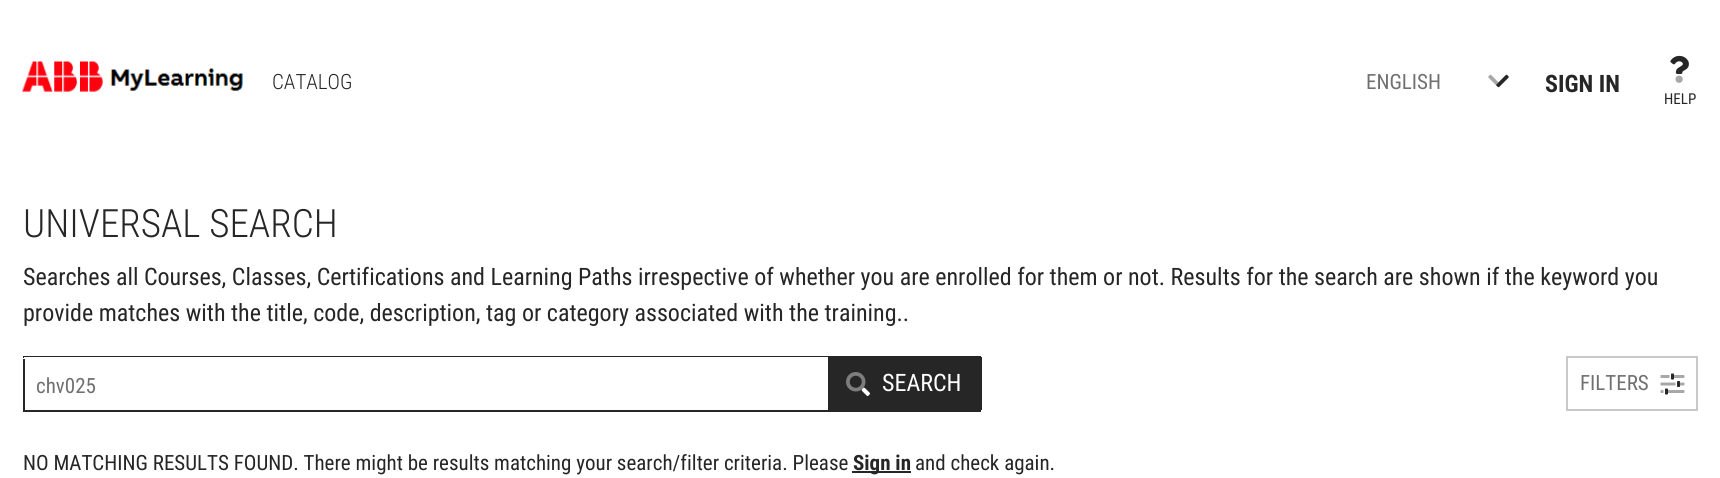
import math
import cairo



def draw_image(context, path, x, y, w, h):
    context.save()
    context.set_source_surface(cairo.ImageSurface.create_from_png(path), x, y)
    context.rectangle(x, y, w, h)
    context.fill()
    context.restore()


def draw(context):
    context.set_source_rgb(1, 1, 1)
    context.paint()
    draw_image(context, "images/1.png", 22, 61, 221, 31)
    draw_image(context, "images/3.png", 1496, 74, 13, 14)
    draw_image(context, "images/2.png", 1488, 74, 11, 11)
    draw_image(context, "images/4.png", 1670, 55, 19, 19)
    draw_image(context, "images/5.png", 1675, 75, 8, 8)
    context.set_source_rgb(38 / 255, 38 / 255, 38 / 255)
    context.rectangle(23, 356, 958, 2)
    context.fill()
    context.rectangle(23, 410, 958, 2)
    context.fill()
    context.set_source_rgb(1, 1, 1)
    context.rectangle(24, 357, 804, 1)
    context.fill()
    context.set_source_rgb(38 / 255, 38 / 255, 38 / 255)
    context.rectangle(23, 359, 2, 51)
    context.fill()
    context.rectangle(980, 357, 2, 53)
    context.fill()
    context.rectangle(828, 358, 152, 52)
    context.fill()
    draw_image(context, "images/7.png", 861, 387, 9, 9)
    draw_image(context, "images/6.png", 846, 372, 20, 20)
    context.rectangle(1567, 357, 130, 53)
    context.set_source_rgb(200 / 255, 200 / 255, 200 / 255)
    context.stroke()
    draw_image(context, "images/8.png", 1665, 373, 15, 22)
    draw_image(context, "images/9.png", 1660, 375, 25, 18)
    context.set_source_rgb(38 / 255, 38 / 255, 38 / 255)
    context.rectangle(852, 471, 59, 2)
    context.fill()
    context.select_font_face("Roboto Condensed Light")
    context.set_font_size(21)
    context.move_to(272, 89)
    context.show_text("CATALOG")
    context.select_font_face("Roboto Condensed")
    context.set_source_rgb(112 / 255, 112 / 255, 112 / 255)
    context.move_to(1366, 89)
    context.show_text("ENGLISH")
    context.select_font_face("Roboto Condensed", cairo.FontSlant.NORMAL, cairo.FontWeight.BOLD)
    context.set_font_size(24)
    context.set_source_rgb(38 / 255, 38 / 255, 38 / 255)
    context.move_to(1545, 92)
    context.show_text("SIGN IN")
    context.select_font_face("Roboto Condensed")
    context.set_font_size(15)
    context.move_to(1664, 104)
    context.show_text("HELP")
    context.select_font_face("Roboto Condensed Light")
    context.set_font_size(39)
    context.move_to(23, 237)
    context.show_text("UNIVERSAL SEARCH")
    context.select_font_face("Roboto Condensed")
    context.set_font_size(24)
    context.move_to(23, 285)
    context.show_text("Searches all Courses, Classes, Certifications and Learning Paths irrespective of whether you are enrolled for them or not. Results for the search are shown if the keyword you")
    context.move_to(23, 321)
    context.show_text("provide matches with the title, code, description, tag or category associated with the training..")
    context.set_font_size(21)
    context.set_source_rgb(112 / 255, 112 / 255, 112 / 255)
    context.move_to(36, 393)
    context.show_text("chv025")
    context.set_font_size(24)
    context.set_source_rgb(1, 1, 1)
    context.move_to(882, 391)
    context.show_text("SEARCH")
    context.set_font_size(21)
    context.set_source_rgb(112 / 255, 112 / 255, 112 / 255)
    context.move_to(1580, 390)
    context.show_text("FILTERS")
    context.set_source_rgb(38 / 255, 38 / 255, 38 / 255)
    context.move_to(23, 470)
    context.show_text("NO MATCHING RESULTS FOUND. There might be results matching your search/filter criteria. Please")
    context.select_font_face("Roboto Condensed", cairo.FontSlant.NORMAL, cairo.FontWeight.BOLD)
    context.move_to(853, 470)
    context.show_text("Sign in")
    context.select_font_face("Roboto Condensed")
    context.move_to(915, 470)
    context.show_text("and check again.")


surface = cairo.ImageSurface(cairo.Format.RGB24, 1720, 478)
context = cairo.Context(surface)
options = cairo.FontOptions()
options.set_hint_metrics(cairo.HintMetrics.OFF)
options.set_hint_style(cairo.HintStyle.NONE)
context.set_font_options(options)
context.set_miter_limit(4)
draw(context)
surface.write_to_png("out.png")
